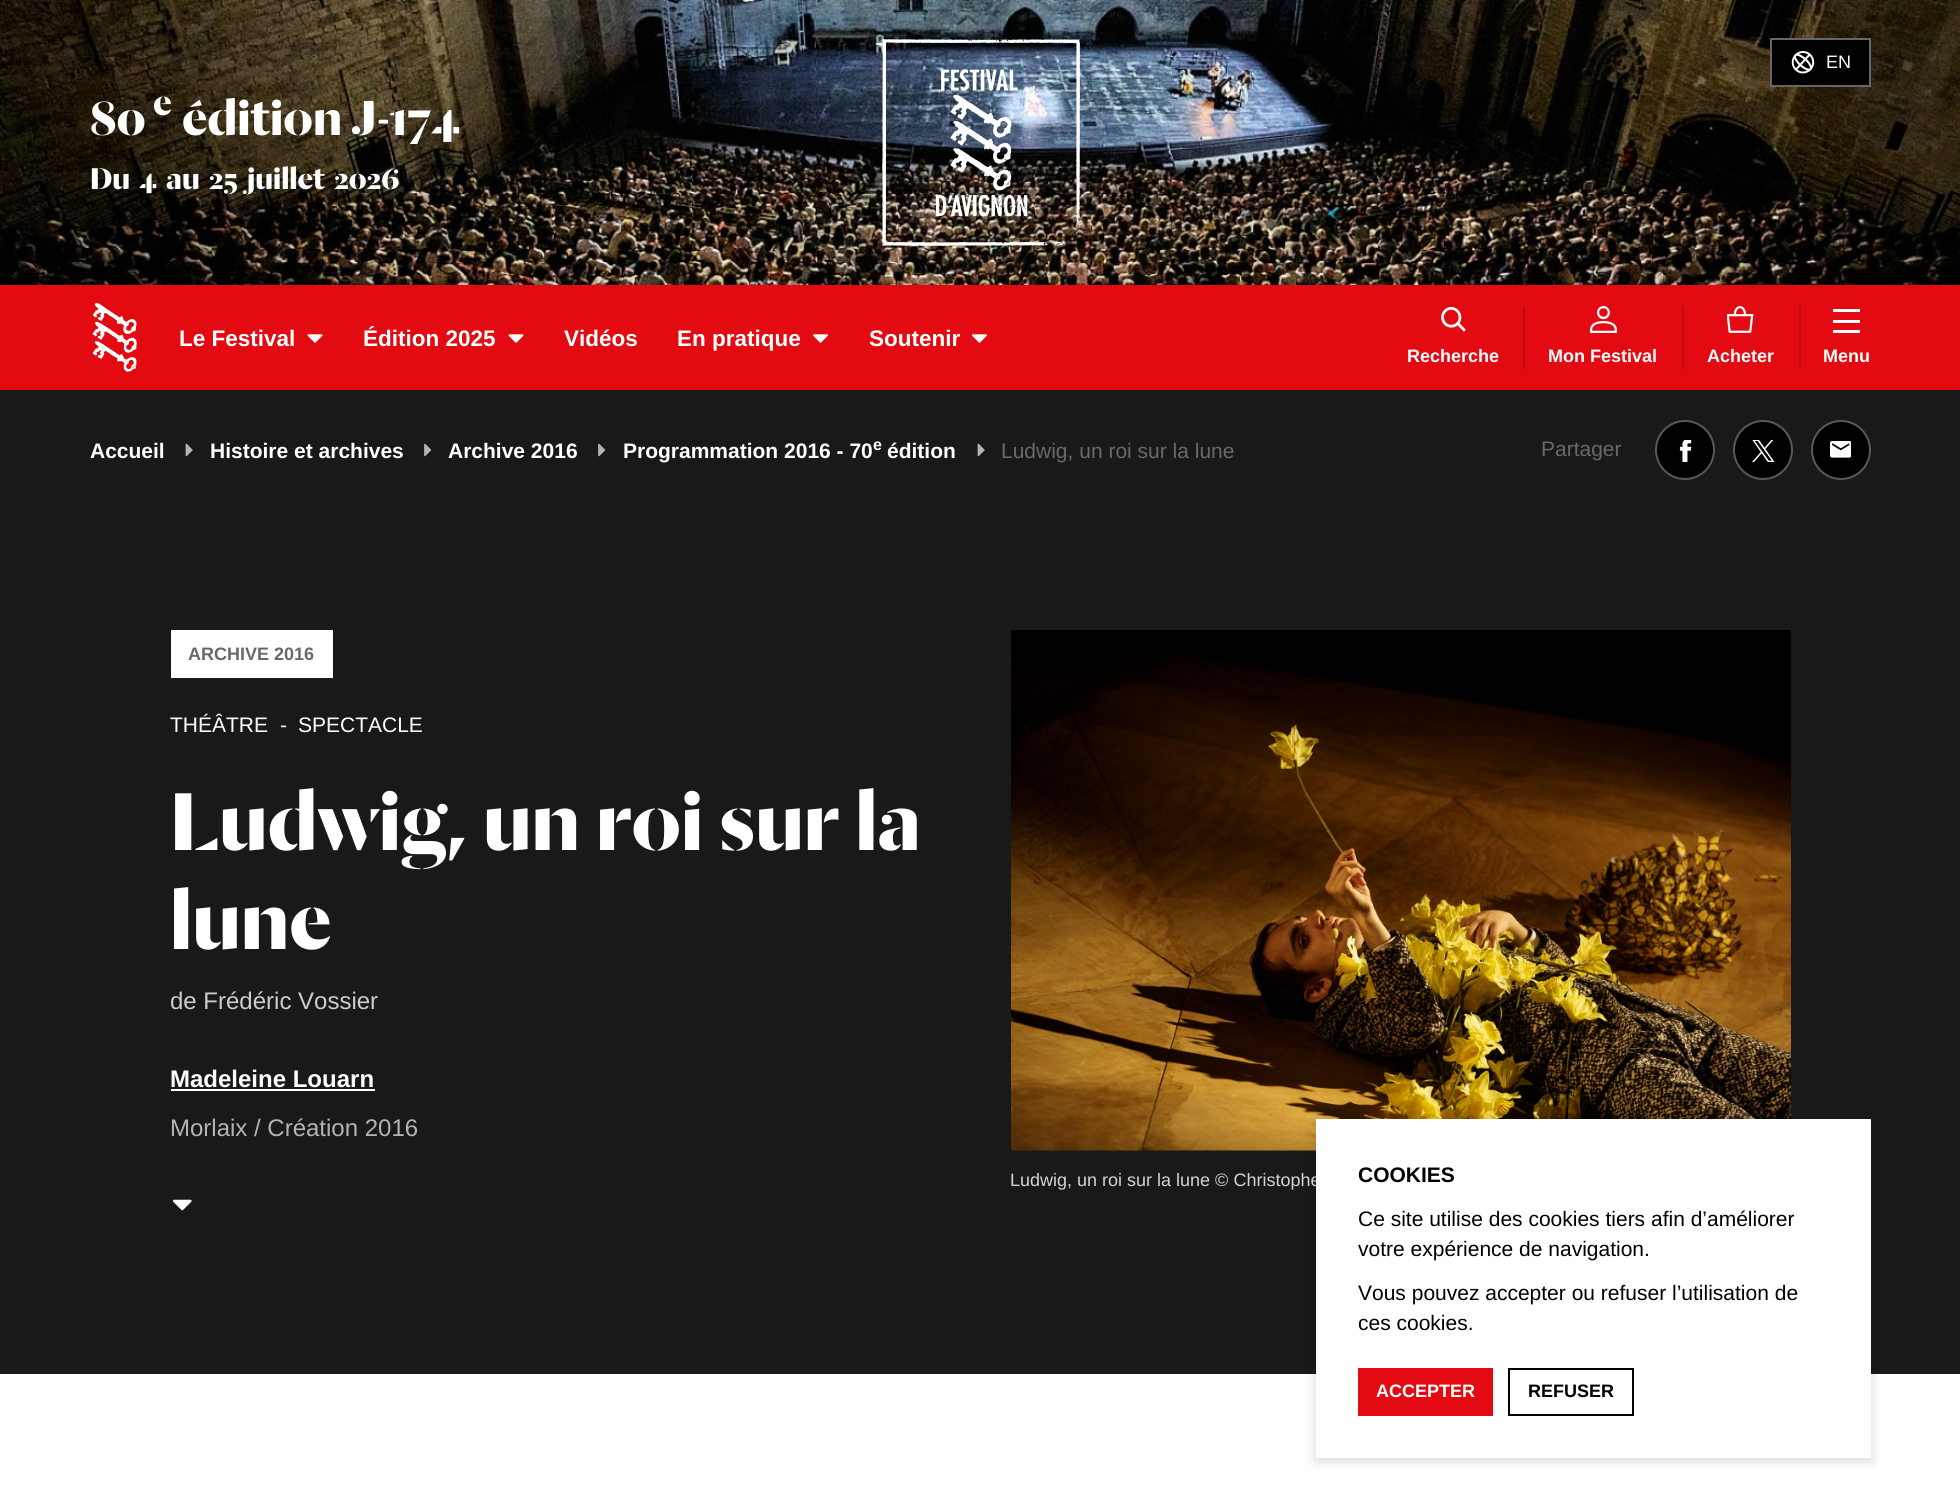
import math
import cairo



def draw_spaced(context, x, y, s, letter, word):
    context.move_to(x, y)
    for ch in s:
        context.show_text(ch)
        context.rel_move_to(letter + word * (ch == ' '), 0)


def rounded_rect(context, x, y, w, h, r):
    context.new_sub_path()
    for i, (u, v) in enumerate([(x + w - r, y + h - r), (x + r, y + h - r), (x + r, y + r), (x + w - r, y + r)]):
        context.arc(u, v, r, i * math.pi / 2, (i + 1) * math.pi / 2)
    context.close_path()


def draw_shadow(context, x, y, w, h, r, blur, alpha):
    context.push_group_with_content(cairo.Content.ALPHA)
    context.set_operator(cairo.Operator.SOURCE)
    for i in range(15, -16, -2):
        e = blur * i / 6
        if min(w, h) + 2 * e > 0:
            context.set_source_rgba(0, 0, 0, alpha * math.erfc((i - 1) / 8.5) / 2)
            rounded_rect(context, x - e, y - e, w + 2 * e, h + 2 * e, max(0, min(r + e + blur * .6, min(w, h) / 2 + e)))
            context.fill()
    context.mask(context.pop_group())


def draw_image(context, path, x, y, w, h):
    context.save()
    context.set_source_surface(cairo.ImageSurface.create_from_png(path), x, y)
    context.rectangle(x, y, w, h)
    context.fill()
    context.restore()


def draw(context):
    context.set_source_rgb(1, 1, 1)
    context.paint()
    draw_image(context, "images/1.png", 0, 0, 1960, 285)
    draw_image(context, "images/2.png", 882, 39, 198, 207)
    context.set_source_rgb(0, 0, 0)
    context.rectangle(1771, 39, 99, 47)
    context.fill_preserve()
    context.set_source_rgb(102 / 255, 102 / 255, 102 / 255)
    context.stroke()
    draw_image(context, "images/3.png", 1791, 51, 24, 23)
    context.set_source_rgb(227 / 255, 10 / 255, 17 / 255)
    context.rectangle(0, 285, 1960, 105)
    context.fill()
    draw_image(context, "images/4.png", 92, 303, 45, 69)
    draw_image(context, "images/5.png", 307, 334, 16, 9)
    draw_image(context, "images/5.png", 508, 334, 16, 9)
    draw_image(context, "images/6.png", 813, 334, 15, 9)
    draw_image(context, "images/6.png", 972, 334, 15, 9)
    context.set_source_rgb(187 / 255, 13 / 255, 19 / 255)
    context.rectangle(1523, 306, 2, 63)
    context.fill()
    draw_image(context, "images/7.png", 1441, 307, 25, 25)
    context.rectangle(1682, 306, 2, 63)
    context.fill()
    draw_image(context, "images/8.png", 1590, 306, 27, 27)
    context.rectangle(1799, 306, 2, 63)
    context.fill()
    draw_image(context, "images/9.png", 1727, 306, 27, 27)
    context.set_source_rgb(1, 1, 1)
    context.rectangle(1833, 309, 27, 3)
    context.fill()
    context.rectangle(1833, 320, 27, 3)
    context.fill()
    context.rectangle(1833, 330, 27, 3)
    context.fill()
    context.set_source_rgb(25 / 255, 25 / 255, 25 / 255)
    context.rectangle(0, 390, 1960, 984)
    context.fill()
    draw_image(context, "images/10.png", 185, 443, 8, 14)
    draw_image(context, "images/11.png", 424, 443, 8, 14)
    draw_image(context, "images/11.png", 598, 443, 8, 14)
    draw_image(context, "images/10.png", 977, 443, 8, 14)
    context.set_source_rgb(0, 0, 0)
    context.arc(1685, 450, 30, 0, 2 * math.pi)
    context.fill()
    context.arc(1685, 450, 29, 0, 2 * math.pi)
    context.set_source_rgba(1, 1, 1, 0.35)
    context.stroke()
    draw_image(context, "images/12.png", 1679, 440, 13, 22)
    context.set_source_rgb(0, 0, 0)
    context.arc(1763, 450, 30, 0, 2 * math.pi)
    context.fill()
    context.arc(1763, 450, 29, 0, 2 * math.pi)
    context.set_source_rgba(1, 1, 1, 0.35)
    context.stroke()
    draw_image(context, "images/13.png", 1752, 440, 23, 22)
    context.set_source_rgb(0, 0, 0)
    context.arc(1841, 450, 30, 0, 2 * math.pi)
    context.fill()
    context.arc(1841, 450, 29, 0, 2 * math.pi)
    context.set_source_rgba(1, 1, 1, 0.35)
    context.stroke()
    draw_image(context, "images/14.png", 1830, 441, 21, 17)
    context.set_source_rgb(1, 1, 1)
    context.rectangle(171, 630, 162, 48)
    context.fill()
    context.rectangle(171, 1089, 204, 2)
    context.fill()
    draw_image(context, "images/15.png", 172, 1199, 20, 12)
    draw_image(context, "images/16.png", 1011, 630, 780, 521)
    context.set_source_rgb(0, 0, 0)
    draw_shadow(context, 1316, 1122, 555, 339, 0, 6, 0.15)
    context.select_font_face("Liberation Sans")
    context.set_font_size(18)
    context.set_source_rgb(1, 1, 1)
    context.move_to(1826, 68)
    context.show_text("EN")
    context.select_font_face("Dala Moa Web", cairo.FontSlant.NORMAL, cairo.FontWeight.BOLD)
    context.set_font_size(54)
    context.move_to(90, 135)
    context.show_text("80")
    context.set_font_size(40)
    context.move_to(153, 115)
    context.show_text("e")
    context.set_font_size(54)
    context.move_to(182, 135)
    context.show_text("édition J-174")
    context.set_font_size(33)
    draw_spaced(context, 90, 189, "Du 4 au 25 juillet 2026", 0, 3.5)
    context.select_font_face("Liberation Sans", cairo.FontSlant.NORMAL, cairo.FontWeight.BOLD)
    context.set_font_size(22.5)
    context.move_to(179, 346)
    context.show_text("Le Festival")
    context.move_to(363, 346)
    context.show_text("Édition 2025")
    context.move_to(564, 346)
    context.show_text("Vidéos")
    context.move_to(677, 346)
    context.show_text("En pratique")
    context.move_to(869, 346)
    context.show_text("Soutenir")
    context.set_font_size(18)
    context.move_to(1407, 362)
    context.show_text("Recherche")
    context.move_to(1548, 362)
    context.show_text("Mon Festival")
    context.move_to(1707, 362)
    context.show_text("Acheter")
    context.move_to(1823, 362)
    context.show_text("Menu")
    context.set_font_size(21)
    context.move_to(90, 458)
    context.show_text("Accueil")
    context.move_to(210, 458)
    context.show_text("Histoire et archives")
    context.move_to(448, 458)
    context.show_text("Archive 2016")
    context.move_to(623, 458)
    context.show_text("Programmation 2016 - 70")
    context.set_font_size(16)
    context.move_to(873, 450)
    context.show_text("e")
    context.set_font_size(21)
    context.move_to(887, 458)
    context.show_text("édition")
    context.select_font_face("Liberation Sans")
    context.set_source_rgb(105 / 255, 105 / 255, 105 / 255)
    context.move_to(1001, 458)
    context.show_text("Ludwig, un roi sur la lune")
    context.move_to(1541, 456)
    context.show_text("Partager")
    context.select_font_face("Liberation Sans", cairo.FontSlant.NORMAL, cairo.FontWeight.BOLD)
    context.set_font_size(18)
    context.move_to(188, 660)
    context.show_text("ARCHIVE 2016")
    context.select_font_face("Liberation Sans")
    context.set_font_size(21)
    context.set_source_rgb(1, 1, 1)
    context.move_to(170, 732)
    context.show_text("THÉÂTRE")
    context.move_to(280, 732)
    context.show_text("-")
    context.move_to(298, 732)
    context.show_text("SPECTACLE")
    context.select_font_face("Dala Moa Web", cairo.FontSlant.NORMAL, cairo.FontWeight.BOLD)
    context.set_font_size(90)
    context.move_to(170, 850)
    context.show_text("Ludwig, un roi sur la")
    context.move_to(170, 949)
    context.show_text("lune")
    context.select_font_face("Liberation Sans")
    context.set_font_size(24)
    context.set_source_rgb(205 / 255, 205 / 255, 205 / 255)
    context.move_to(170, 1009)
    context.show_text("de Frédéric Vossier")
    context.select_font_face("Liberation Sans", cairo.FontSlant.NORMAL, cairo.FontWeight.BOLD)
    context.set_source_rgb(1, 1, 1)
    context.move_to(170, 1087)
    context.show_text("Madeleine Louarn")
    context.select_font_face("Liberation Sans")
    context.set_source_rgb(180 / 255, 180 / 255, 180 / 255)
    context.move_to(170, 1136)
    context.show_text("Morlaix / Création 2016")
    context.set_font_size(18)
    context.set_source_rgb(212 / 255, 212 / 255, 212 / 255)
    context.move_to(1010, 1186)
    context.show_text("Ludwig, un roi sur la lune © Christophe")
    context.set_source_rgb(1, 1, 1)
    context.rectangle(1316, 1119, 555, 339)
    context.fill()
    context.select_font_face("Liberation Sans", cairo.FontSlant.NORMAL, cairo.FontWeight.BOLD)
    context.set_font_size(21)
    context.set_source_rgb(0, 0, 0)
    context.move_to(1358, 1182)
    context.show_text("COOKIES")
    context.select_font_face("Liberation Sans")
    context.move_to(1358, 1226)
    context.show_text("Ce site utilise des cookies tiers afin d’améliorer")
    context.move_to(1358, 1256)
    context.show_text("votre expérience de navigation.")
    context.move_to(1358, 1300)
    context.show_text("Vous pouvez accepter ou refuser l’utilisation de")
    context.move_to(1358, 1330)
    context.show_text("ces cookies.")
    context.set_source_rgb(227 / 255, 10 / 255, 17 / 255)
    context.rectangle(1358, 1368, 135, 48)
    context.fill()
    context.select_font_face("Liberation Sans", cairo.FontSlant.NORMAL, cairo.FontWeight.BOLD)
    context.set_font_size(18)
    context.set_source_rgb(1, 1, 1)
    context.move_to(1376, 1397)
    context.show_text("ACCEPTER")
    context.rectangle(1509, 1369, 124, 46)
    context.set_source_rgb(0, 0, 0)
    context.stroke()
    context.move_to(1528, 1397)
    context.show_text("REFUSER")


surface = cairo.ImageSurface(cairo.Format.RGB24, 1960, 1499)
context = cairo.Context(surface)
options = cairo.FontOptions()
options.set_hint_metrics(cairo.HintMetrics.OFF)
options.set_hint_style(cairo.HintStyle.NONE)
context.set_font_options(options)
context.set_miter_limit(4)
draw(context)
surface.write_to_png("out.png")
